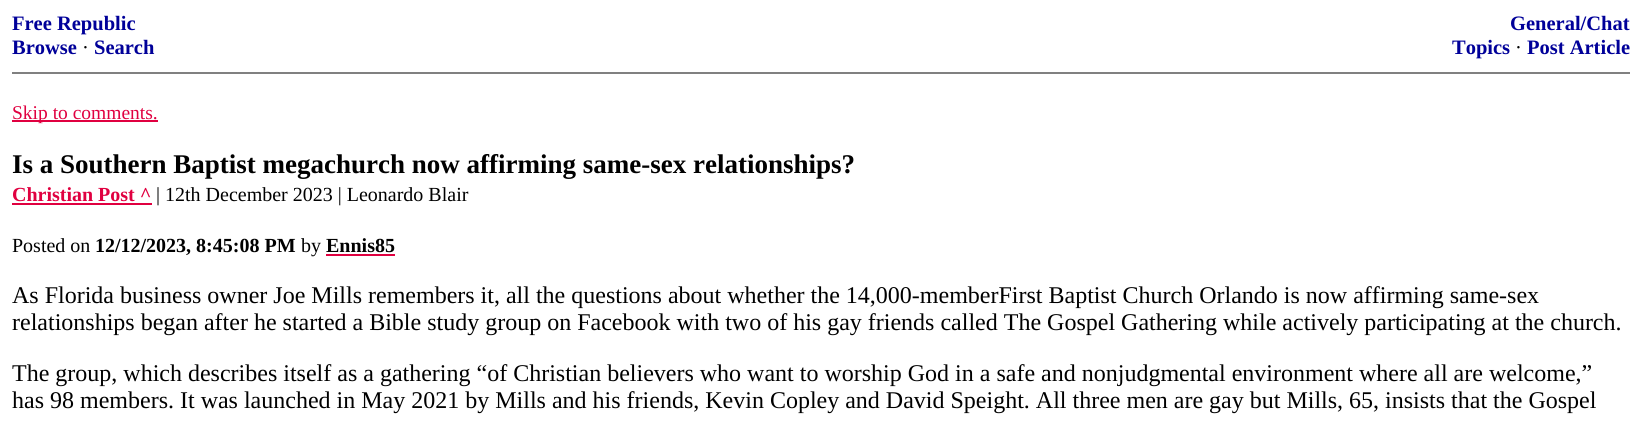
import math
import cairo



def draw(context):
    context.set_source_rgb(1, 1, 1)
    context.paint()
    context.set_source_rgb(128 / 255, 128 / 255, 128 / 255)
    context.rectangle(12, 72, 1618, 2)
    context.fill()
    context.set_source_rgb(224 / 255, 0, 64 / 255)
    context.rectangle(12, 120, 146, 2)
    context.fill()
    context.rectangle(12, 203, 140, 2)
    context.fill()
    context.rectangle(326, 254, 69, 2)
    context.fill()
    context.select_font_face("Liberation Serif", cairo.FontSlant.NORMAL, cairo.FontWeight.BOLD)
    context.set_font_size(20.5)
    context.set_source_rgb(0, 0, 153 / 255)
    context.move_to(12, 30)
    context.show_text("Free Republic")
    context.move_to(12, 54)
    context.show_text("Browse")
    context.select_font_face("Liberation Serif")
    context.set_source_rgb(0, 0, 0)
    context.move_to(82, 54)
    context.show_text("·")
    context.select_font_face("Liberation Serif", cairo.FontSlant.NORMAL, cairo.FontWeight.BOLD)
    context.set_source_rgb(0, 0, 153 / 255)
    context.move_to(94, 54)
    context.show_text("Search")
    context.move_to(1510, 30)
    context.show_text("General/Chat")
    context.move_to(1452, 54)
    context.show_text("Topics")
    context.select_font_face("Liberation Serif")
    context.set_source_rgb(0, 0, 0)
    context.move_to(1515, 54)
    context.show_text("·")
    context.select_font_face("Liberation Serif", cairo.FontSlant.NORMAL, cairo.FontWeight.BOLD)
    context.set_source_rgb(0, 0, 153 / 255)
    context.move_to(1527, 54)
    context.show_text("Post Article")
    context.select_font_face("Liberation Serif")
    context.set_font_size(19.5)
    context.set_source_rgb(224 / 255, 0, 64 / 255)
    context.move_to(12, 119)
    context.show_text("Skip to comments.")
    context.select_font_face("Liberation Serif", cairo.FontSlant.NORMAL, cairo.FontWeight.BOLD)
    context.set_font_size(27)
    context.set_source_rgb(0, 0, 0)
    context.move_to(12, 173)
    context.show_text("Is a Southern Baptist megachurch now affirming same-sex relationships?")
    context.set_font_size(20)
    context.set_source_rgb(224 / 255, 0, 64 / 255)
    context.move_to(12, 201)
    context.show_text("Christian Post ^")
    context.select_font_face("Liberation Serif")
    context.set_source_rgb(0, 0, 0)
    context.move_to(156, 201)
    context.show_text("| 12th December 2023 | Leonardo Blair")
    context.move_to(12, 252)
    context.show_text("Posted on")
    context.select_font_face("Liberation Serif", cairo.FontSlant.NORMAL, cairo.FontWeight.BOLD)
    context.move_to(95, 252)
    context.show_text("12/12/2023, 8:45:08 PM")
    context.select_font_face("Liberation Serif")
    context.move_to(301, 252)
    context.show_text("by")
    context.select_font_face("Liberation Serif", cairo.FontSlant.NORMAL, cairo.FontWeight.BOLD)
    context.move_to(326, 252)
    context.show_text("Ennis85")
    context.select_font_face("Liberation Serif")
    context.set_font_size(24)
    context.move_to(12, 303)
    context.show_text("As Florida business owner Joe Mills remembers it, all the questions about whether the 14,000-memberFirst Baptist Church Orlando is now affirming same-sex")
    context.move_to(12, 330)
    context.show_text("relationships began after he started a Bible study group on Facebook with two of his gay friends called The Gospel Gathering while actively participating at the church.")
    context.move_to(12, 381)
    context.show_text("The group, which describes itself as a gathering “of Christian believers who want to worship God in a safe and nonjudgmental environment where all are welcome,”")
    context.move_to(12, 408)
    context.show_text("has 98 members. It was launched in May 2021 by Mills and his friends, Kevin Copley and David Speight. All three men are gay but Mills, 65, insists that the Gospel")


surface = cairo.ImageSurface(cairo.Format.RGB24, 1641, 423)
context = cairo.Context(surface)
options = cairo.FontOptions()
options.set_hint_metrics(cairo.HintMetrics.OFF)
options.set_hint_style(cairo.HintStyle.NONE)
context.set_font_options(options)
context.set_miter_limit(4)
draw(context)
surface.write_to_png("out.png")
